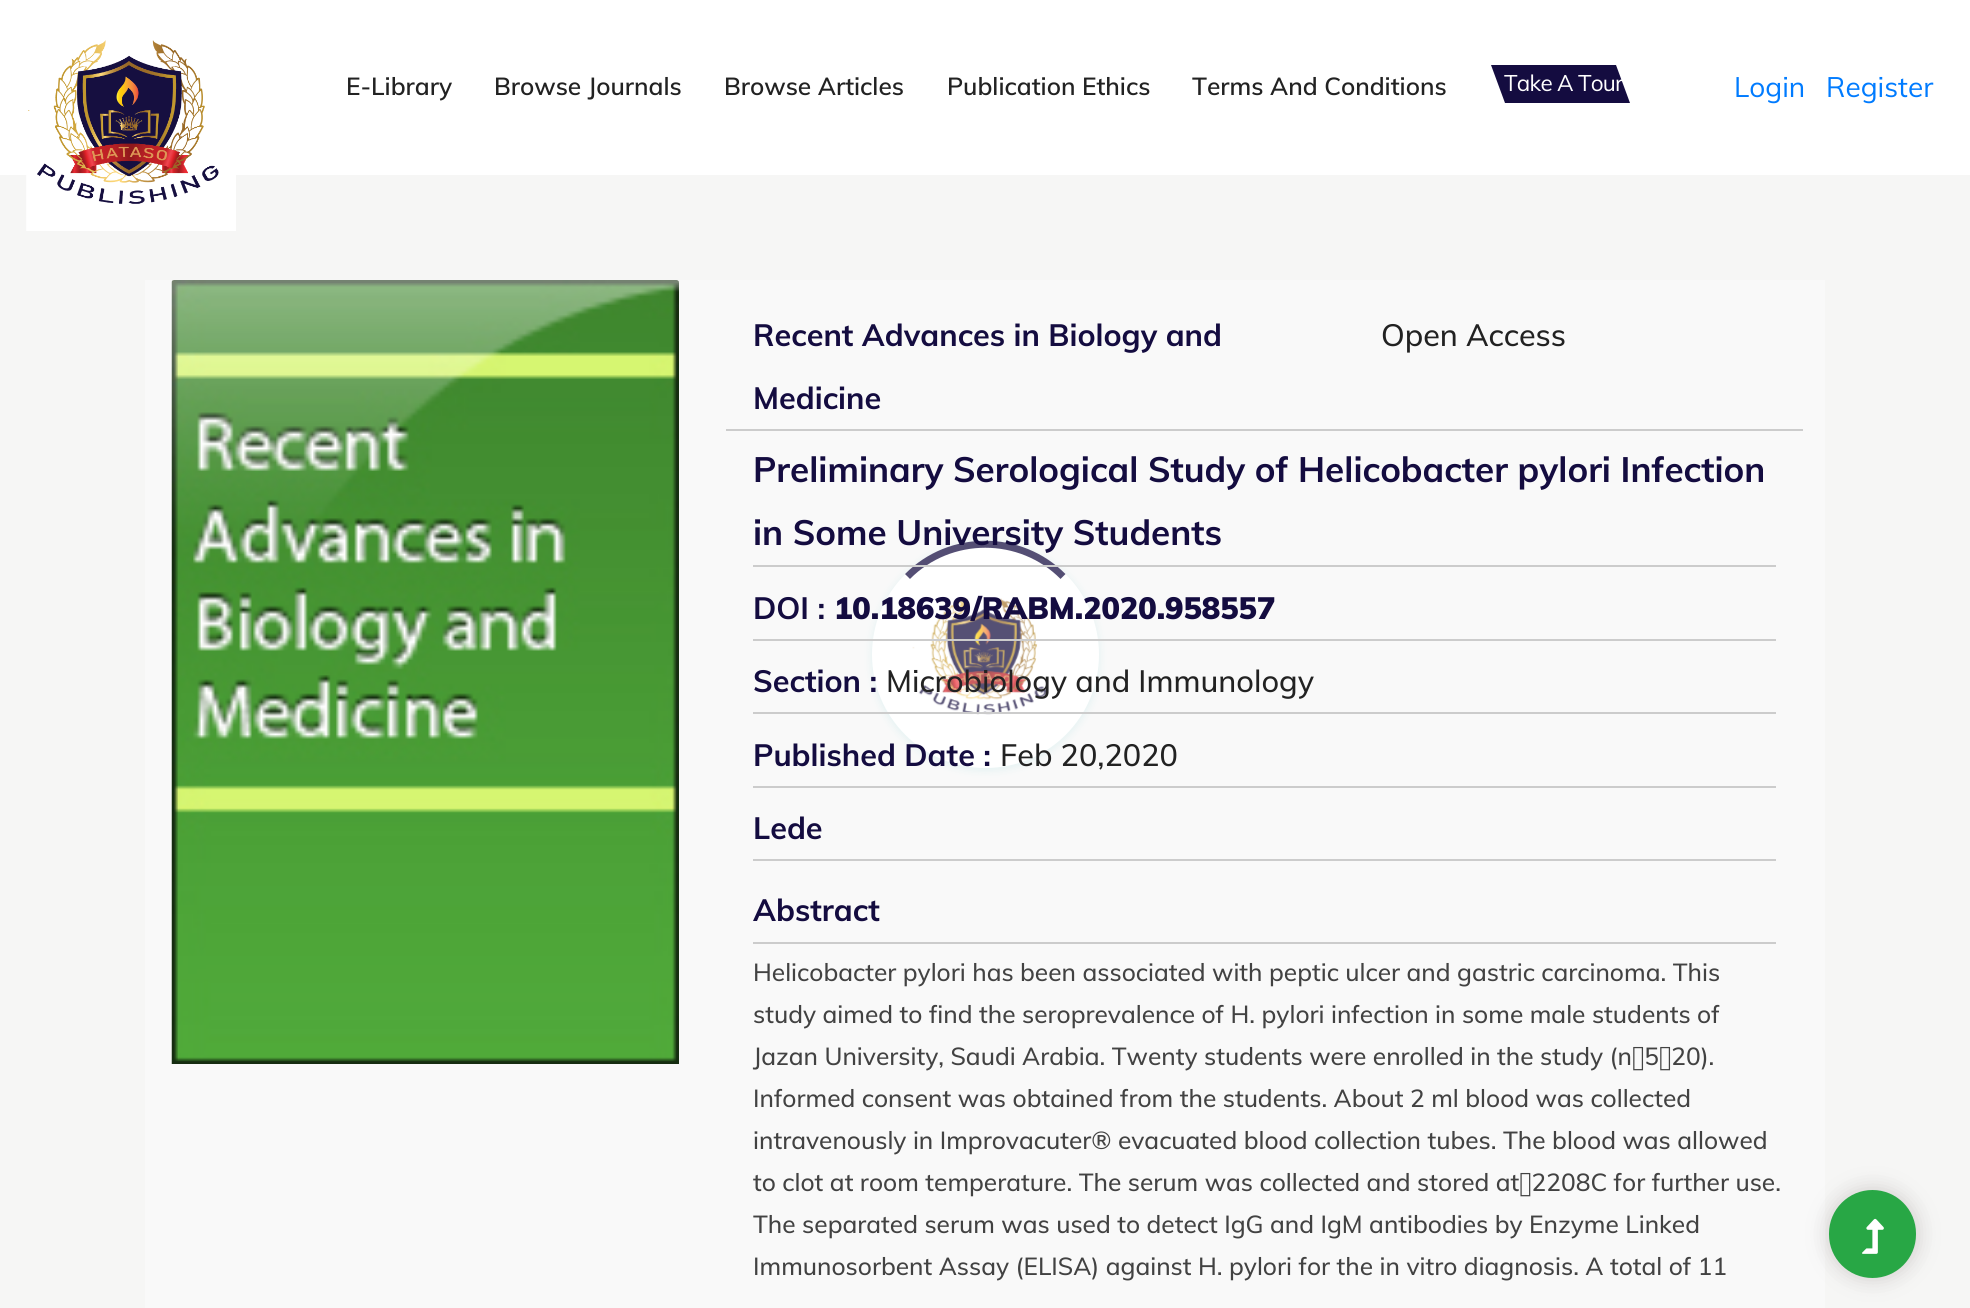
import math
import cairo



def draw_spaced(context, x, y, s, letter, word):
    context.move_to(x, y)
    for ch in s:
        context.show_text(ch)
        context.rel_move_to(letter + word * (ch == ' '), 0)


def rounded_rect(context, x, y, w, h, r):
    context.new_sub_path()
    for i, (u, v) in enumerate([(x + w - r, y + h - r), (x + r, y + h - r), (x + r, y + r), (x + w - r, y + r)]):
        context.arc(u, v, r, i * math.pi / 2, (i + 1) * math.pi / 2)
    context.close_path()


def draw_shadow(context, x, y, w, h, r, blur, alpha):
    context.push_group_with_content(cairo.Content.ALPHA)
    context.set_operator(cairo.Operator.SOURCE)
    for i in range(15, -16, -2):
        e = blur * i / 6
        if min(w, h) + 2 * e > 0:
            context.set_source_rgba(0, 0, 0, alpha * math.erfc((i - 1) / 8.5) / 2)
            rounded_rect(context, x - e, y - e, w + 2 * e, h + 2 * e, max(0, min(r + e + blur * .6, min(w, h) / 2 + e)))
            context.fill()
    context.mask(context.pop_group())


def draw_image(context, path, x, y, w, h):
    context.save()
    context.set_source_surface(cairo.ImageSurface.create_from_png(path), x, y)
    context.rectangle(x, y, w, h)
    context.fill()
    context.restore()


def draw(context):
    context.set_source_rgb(246 / 255, 246 / 255, 245 / 255)
    context.paint()
    context.set_source_rgb(1, 1, 1)
    context.rectangle(0, 0, 1970, 175)
    context.fill()
    draw_image(context, "images/1.png", 26, 40, 210, 191)
    context.set_source_rgb(20 / 255, 12 / 255, 64 / 255)
    context.new_path()
    context.move_to(1491, 65)
    context.line_to(1616, 65)
    context.line_to(1630, 103)
    context.line_to(1505, 103)
    context.close_path()
    context.fill()
    context.set_source_rgb(249 / 255, 249 / 255, 249 / 255)
    context.rectangle(145, 280, 1680, 1028)
    context.fill()
    draw_image(context, "images/2.png", 171, 280, 508, 784)
    context.set_source_rgb(204 / 255, 204 / 255, 204 / 255)
    context.rectangle(726, 429, 1077, 2)
    context.fill()
    context.set_source_rgb(95 / 255, 201 / 255, 204 / 255)
    draw_shadow(context, 872, 543, 227, 227, 113.5, 4.5, 0.15)
    context.set_source_rgb(1, 1, 1)
    context.arc(985.5, 654.5, 113.5, 0, 2 * math.pi)
    context.fill()
    context.new_path()
    context.move_to(907.5, 576.5)
    context.curve_to(950, 533.5, 1020.5, 533.5, 1063, 576.5)
    context.set_source_rgb(84 / 255, 78 / 255, 116 / 255)
    context.set_line_width(7)
    context.stroke()
    context.set_source_rgb(204 / 255, 204 / 255, 204 / 255)
    context.rectangle(753, 565, 1023, 2)
    context.fill()
    draw_image(context, "images/3.png", 912, 598, 135, 117)
    context.rectangle(753, 639, 1023, 2)
    context.fill()
    context.rectangle(753, 712, 1023, 2)
    context.fill()
    context.rectangle(753, 786, 1023, 2)
    context.fill()
    context.rectangle(753, 859, 1023, 2)
    context.fill()
    context.rectangle(753, 942, 1023, 2)
    context.fill()
    context.set_source_rgb(108 / 255, 98 / 255, 98 / 255)
    draw_shadow(context, 1824, 1185, 98, 98, 49, 9, 0.2)
    context.set_source_rgb(40 / 255, 167 / 255, 69 / 255)
    rounded_rect(context, 1829, 1190, 87, 88, 43.5)
    context.fill()
    draw_image(context, "images/4.png", 1862, 1218, 22, 36)
    context.select_font_face("Muli SemiBold")
    context.set_font_size(24.5)
    context.set_source_rgb(34 / 255, 34 / 255, 34 / 255)
    context.move_to(346, 95)
    context.show_text("E-Library")
    context.move_to(494, 95)
    context.show_text("Browse Journals")
    context.move_to(724, 95)
    context.show_text("Browse Articles")
    context.move_to(947, 95)
    context.show_text("Publication Ethics")
    context.move_to(1192, 95)
    context.show_text("Terms And Conditions")
    context.select_font_face("Muli")
    context.set_font_size(22.5)
    context.set_source_rgb(1, 1, 1)
    draw_spaced(context, 1504, 91, "Take A Tour", -0.75, 0)
    context.set_font_size(28)
    context.set_source_rgb(0, 123 / 255, 1)
    context.move_to(1734, 97)
    context.show_text("Login")
    context.move_to(1826, 97)
    context.show_text("Register")
    context.select_font_face("Muli", cairo.FontSlant.NORMAL, cairo.FontWeight.BOLD)
    context.set_font_size(30.6)
    context.set_source_rgb(20 / 255, 12 / 255, 64 / 255)
    context.move_to(753, 346)
    context.show_text("Recent Advances in Biology and")
    context.move_to(753, 409)
    context.show_text("Medicine")
    context.select_font_face("Muli Medium")
    context.set_source_rgb(34 / 255, 34 / 255, 34 / 255)
    context.move_to(1381, 346)
    context.show_text("Open Access")
    context.select_font_face("Muli", cairo.FontSlant.NORMAL, cairo.FontWeight.BOLD)
    context.set_font_size(35)
    context.set_source_rgb(20 / 255, 12 / 255, 64 / 255)
    context.move_to(753, 482)
    context.show_text("Preliminary Serological Study of Helicobacter pylori Infection")
    context.move_to(753, 545)
    context.show_text("in Some University Students")
    context.set_font_size(30.6)
    context.move_to(753, 619)
    context.show_text("DOI :")
    context.select_font_face("Muli Black")
    context.move_to(834, 619)
    context.show_text("10.18639/RABM.2020.958557")
    context.select_font_face("Muli", cairo.FontSlant.NORMAL, cairo.FontWeight.BOLD)
    context.move_to(753, 692)
    context.show_text("Section :")
    context.select_font_face("Muli Medium")
    context.set_source_rgb(34 / 255, 34 / 255, 34 / 255)
    context.move_to(886, 692)
    context.show_text("Microbiology and Immunology")
    context.select_font_face("Muli", cairo.FontSlant.NORMAL, cairo.FontWeight.BOLD)
    context.set_source_rgb(20 / 255, 12 / 255, 64 / 255)
    context.move_to(753, 766)
    context.show_text("Published Date :")
    context.select_font_face("Muli Medium")
    context.set_source_rgb(34 / 255, 34 / 255, 34 / 255)
    context.move_to(1000, 766)
    context.show_text("Feb 20,2020")
    context.select_font_face("Muli", cairo.FontSlant.NORMAL, cairo.FontWeight.BOLD)
    context.set_source_rgb(20 / 255, 12 / 255, 64 / 255)
    context.move_to(753, 839)
    context.show_text("Lede")
    context.move_to(753, 921)
    context.show_text("Abstract")
    context.select_font_face("Muli Medium")
    context.set_font_size(24.5)
    context.set_source_rgb(66 / 255, 66 / 255, 66 / 255)
    context.move_to(753, 981)
    context.show_text("Helicobacter pylori has been associated with peptic ulcer and gastric carcinoma. This")
    context.move_to(753, 1023)
    context.show_text("study aimed to find the seroprevalence of H. pylori infection in some male students of")
    context.move_to(753, 1065)
    context.show_text("Jazan University, Saudi Arabia. Twenty students were enrolled in the study (n 5 20).")
    context.move_to(753, 1107)
    context.show_text("Informed consent was obtained from the students. About 2 ml blood was collected")
    context.move_to(753, 1149)
    context.show_text("intravenously in Improvacuter® evacuated blood collection tubes. The blood was allowed")
    context.move_to(753, 1191)
    context.show_text("to clot at room temperature. The serum was collected and stored at 2208C for further use.")
    context.move_to(753, 1233)
    context.show_text("The separated serum was used to detect IgG and IgM antibodies by Enzyme Linked")
    context.move_to(753, 1275)
    context.show_text("Immunosorbent Assay (ELISA) against H. pylori for the in vitro diagnosis. A total of 11")


surface = cairo.ImageSurface(cairo.Format.RGB24, 1970, 1308)
context = cairo.Context(surface)
options = cairo.FontOptions()
options.set_hint_metrics(cairo.HintMetrics.OFF)
options.set_hint_style(cairo.HintStyle.NONE)
context.set_font_options(options)
context.set_miter_limit(4)
draw(context)
surface.write_to_png("out.png")
